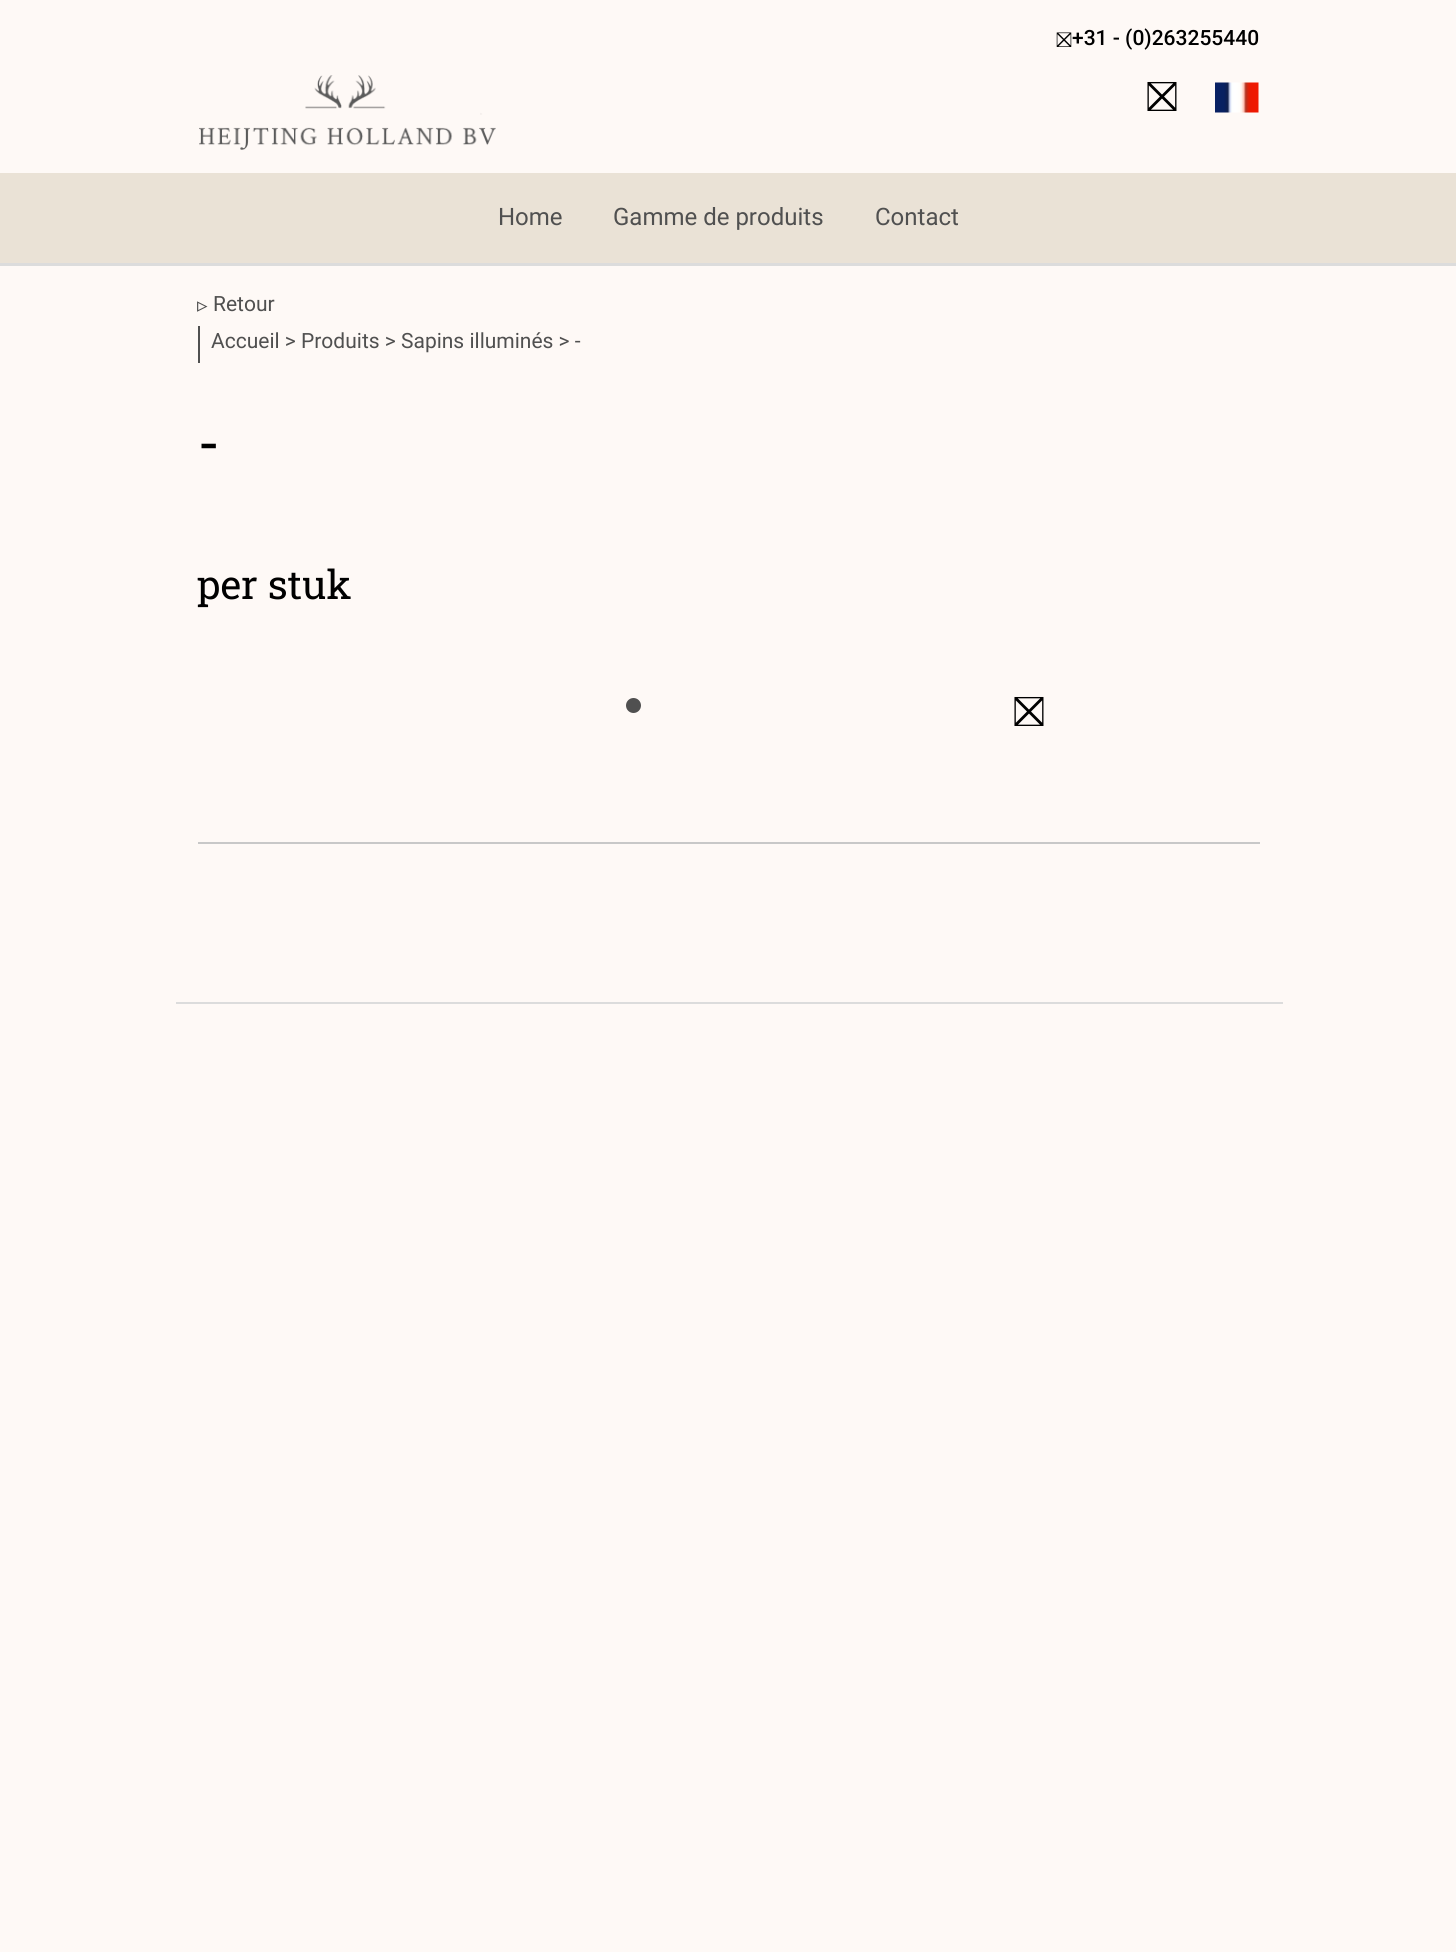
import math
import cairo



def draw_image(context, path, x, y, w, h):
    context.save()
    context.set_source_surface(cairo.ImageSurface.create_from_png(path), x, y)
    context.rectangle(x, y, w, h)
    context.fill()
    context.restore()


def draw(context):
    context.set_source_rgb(254 / 255, 249 / 255, 246 / 255)
    context.paint()
    context.set_source_rgb(220 / 255, 220 / 255, 220 / 255)
    context.rectangle(0, 263, 1456, 3)
    context.fill()
    draw_image(context, "images/1.png", 199, 75, 297, 75)
    draw_image(context, "images/2.png", 1215, 82, 44, 31)
    context.set_source_rgb(234 / 255, 226 / 255, 214 / 255)
    context.rectangle(0, 173, 1456, 90)
    context.fill()
    context.set_source_rgb(80 / 255, 80 / 255, 80 / 255)
    context.rectangle(198, 326, 2, 37)
    context.fill()
    context.arc(633.5, 705.5, 7.5, 0, 2 * math.pi)
    context.fill()
    context.set_source_rgb(200 / 255, 200 / 255, 200 / 255)
    context.rectangle(198, 842, 1062, 2)
    context.fill()
    context.set_source_rgb(220 / 255, 220 / 255, 220 / 255)
    context.rectangle(176, 1002, 1107, 2)
    context.fill()
    context.select_font_face("FreeSerif")
    context.set_font_size(21)
    context.set_source_rgb(0, 0, 0)
    context.move_to(1056, 47)
    context.show_text("⛝")
    context.select_font_face("Roboto Medium")
    context.move_to(1072, 45)
    context.show_text("+31 - (0)263255440")
    context.select_font_face("FreeSerif")
    context.set_font_size(42)
    context.move_to(1146, 111)
    context.show_text("⛝")
    context.select_font_face("Roboto")
    context.set_font_size(24)
    context.set_source_rgb(80 / 255, 80 / 255, 80 / 255)
    context.move_to(498, 225)
    context.show_text("Home")
    context.move_to(613, 225)
    context.show_text("Gamme de produits")
    context.move_to(875, 225)
    context.show_text("Contact")
    context.select_font_face("DejaVu Sans")
    context.set_font_size(21)
    context.move_to(197, 312)
    context.show_text("▹")
    context.select_font_face("Roboto")
    context.move_to(213, 311)
    context.show_text("Retour")
    context.move_to(211, 348)
    context.show_text("Accueil > Produits > Sapins illuminés > -")
    context.select_font_face("Roboto Slab")
    context.set_font_size(60)
    context.set_source_rgb(0, 0, 0)
    context.move_to(197, 464)
    context.show_text("-")
    context.set_font_size(40)
    context.move_to(197, 599)
    context.show_text("per stuk")
    context.select_font_face("FreeSerif")
    context.set_font_size(42)
    context.move_to(1013, 726)
    context.show_text("⛝")


surface = cairo.ImageSurface(cairo.Format.RGB24, 1456, 1952)
context = cairo.Context(surface)
options = cairo.FontOptions()
options.set_hint_metrics(cairo.HintMetrics.OFF)
options.set_hint_style(cairo.HintStyle.NONE)
context.set_font_options(options)
context.set_miter_limit(4)
draw(context)
surface.write_to_png("out.png")
